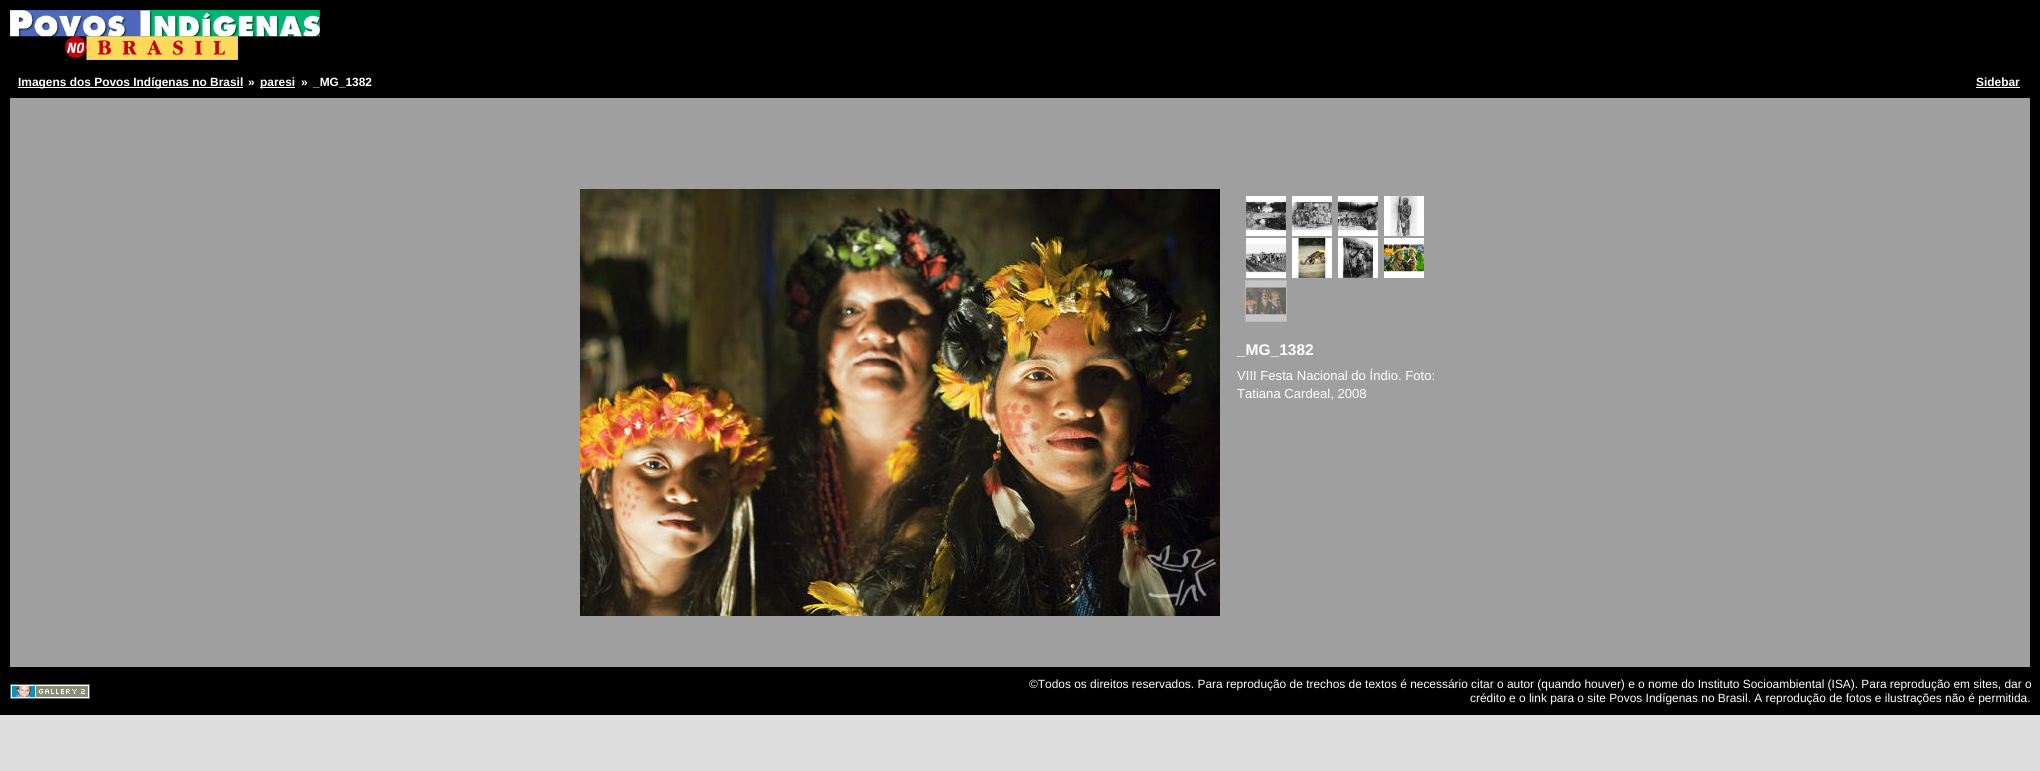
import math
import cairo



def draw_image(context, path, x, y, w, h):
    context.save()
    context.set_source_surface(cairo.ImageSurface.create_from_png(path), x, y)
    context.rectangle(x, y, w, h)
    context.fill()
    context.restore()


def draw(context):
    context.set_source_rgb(221 / 255, 221 / 255, 221 / 255)
    context.paint()
    context.set_source_rgb(0, 0, 0)
    context.rectangle(0, 0, 2040, 715)
    context.fill()
    draw_image(context, "images/1.png", 10, 10, 310, 50)
    context.set_source_rgb(1, 1, 1)
    context.rectangle(18, 87, 225, 1)
    context.fill()
    context.rectangle(260, 87, 35, 1)
    context.fill()
    context.rectangle(1976, 87, 44, 1)
    context.fill()
    context.set_source_rgb(159 / 255, 159 / 255, 159 / 255)
    context.rectangle(10, 98, 2020, 569)
    context.fill()
    draw_image(context, "images/2.png", 580, 189, 640, 427)
    draw_image(context, "images/3.png", 1246, 196, 40, 40)
    draw_image(context, "images/4.png", 1292, 196, 40, 40)
    draw_image(context, "images/5.png", 1338, 196, 40, 40)
    draw_image(context, "images/6.png", 1384, 196, 40, 40)
    draw_image(context, "images/7.png", 1246, 238, 40, 40)
    draw_image(context, "images/8.png", 1292, 238, 40, 40)
    draw_image(context, "images/9.png", 1338, 238, 40, 40)
    draw_image(context, "images/10.png", 1384, 238, 40, 40)
    context.rectangle(1245.5, 280.5, 41, 41)
    context.set_source_rgb(184 / 255, 184 / 255, 184 / 255)
    context.set_line_width(1)
    context.stroke()
    draw_image(context, "images/11.png", 1246, 281, 40, 40)
    draw_image(context, "images/12.png", 10, 684, 80, 15)
    context.select_font_face("Liberation Sans", cairo.FontSlant.NORMAL, cairo.FontWeight.BOLD)
    context.set_font_size(11.92)
    context.set_source_rgb(1, 1, 1)
    context.move_to(18, 86)
    context.show_text("Imagens dos Povos Indígenas no Brasil")
    context.move_to(248, 86)
    context.show_text("»")
    context.move_to(260, 86)
    context.show_text("paresi")
    context.move_to(301, 86)
    context.show_text("»")
    context.move_to(313, 86)
    context.show_text("_MG_1382")
    context.move_to(1976, 86)
    context.show_text("Sidebar")
    context.set_font_size(15.5)
    context.move_to(1237, 355)
    context.show_text("_MG_1382")
    context.select_font_face("Liberation Sans")
    context.set_font_size(13.1)
    context.move_to(1237, 380)
    context.show_text("VIII Festa Nacional do Índio. Foto:")
    context.move_to(1237, 398)
    context.show_text("Tatiana Cardeal, 2008")
    context.set_font_size(11.92)
    context.move_to(1029, 688)
    context.show_text("©Todos os direitos reservados. Para reprodução de trechos de textos é necessário citar o autor (quando houver) e o nome do Instituto Socioambiental (ISA). Para reprodução em sites, dar o")
    context.move_to(1470, 702)
    context.show_text("crédito e o link para o site Povos Indígenas no Brasil. A reprodução de fotos e ilustrações não é permitida.")


surface = cairo.ImageSurface(cairo.Format.RGB24, 2040, 771)
context = cairo.Context(surface)
options = cairo.FontOptions()
options.set_hint_metrics(cairo.HintMetrics.OFF)
options.set_hint_style(cairo.HintStyle.NONE)
context.set_font_options(options)
context.set_miter_limit(4)
draw(context)
surface.write_to_png("out.png")
